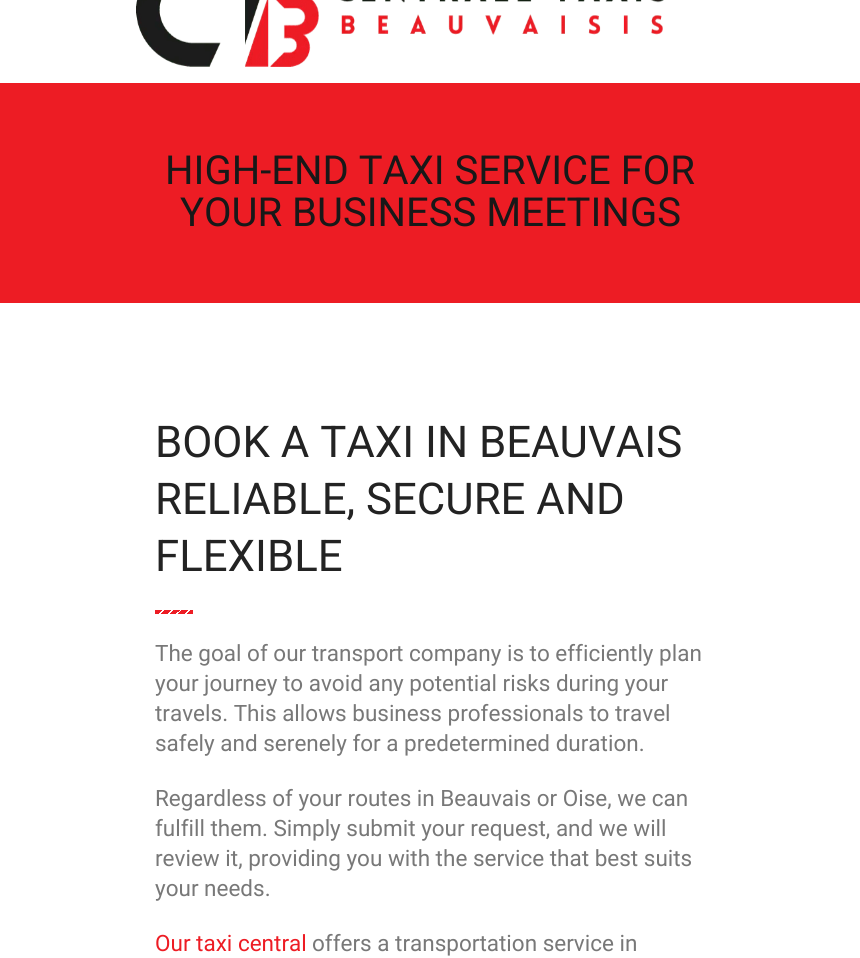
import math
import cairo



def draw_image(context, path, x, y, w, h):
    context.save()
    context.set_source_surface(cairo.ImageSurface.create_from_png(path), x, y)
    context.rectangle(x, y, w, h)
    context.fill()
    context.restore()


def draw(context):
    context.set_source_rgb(1, 1, 1)
    context.paint()
    draw_image(context, "images/1.png", 136, 0, 528, 67)
    context.set_source_rgb(237 / 255, 28 / 255, 36 / 255)
    context.rectangle(0, 83, 860, 220)
    context.fill()
    gradient = cairo.LinearGradient(164, 619, 155, 610)
    gradient.add_color_stop_rgba(0.1, 1, 1, 1, 1)
    gradient.add_color_stop_rgba(0.1, 237 / 255, 28 / 255, 36 / 255, 1)
    gradient.add_color_stop_rgba(0.5, 237 / 255, 28 / 255, 36 / 255, 1)
    gradient.add_color_stop_rgba(0.5, 1, 1, 1, 1)
    gradient.add_color_stop_rgba(0.6, 1, 1, 1, 1)
    gradient.add_color_stop_rgba(0.6, 237 / 255, 28 / 255, 36 / 255, 1)
    gradient.add_color_stop_rgba(1, 237 / 255, 28 / 255, 36 / 255, 1)
    context.set_source(gradient)
    context.rectangle(155, 610, 9, 4)
    context.fill()
    gradient = cairo.LinearGradient(173, 619, 164, 610)
    gradient.add_color_stop_rgba(0.1, 1, 1, 1, 1)
    gradient.add_color_stop_rgba(0.1, 237 / 255, 28 / 255, 36 / 255, 1)
    gradient.add_color_stop_rgba(0.5, 237 / 255, 28 / 255, 36 / 255, 1)
    gradient.add_color_stop_rgba(0.5, 1, 1, 1, 1)
    gradient.add_color_stop_rgba(0.6, 1, 1, 1, 1)
    gradient.add_color_stop_rgba(0.6, 237 / 255, 28 / 255, 36 / 255, 1)
    gradient.add_color_stop_rgba(1, 237 / 255, 28 / 255, 36 / 255, 1)
    context.set_source(gradient)
    context.rectangle(164, 610, 9, 4)
    context.fill()
    gradient = cairo.LinearGradient(181, 619, 173, 610)
    gradient.add_color_stop_rgba(0.1, 1, 1, 1, 1)
    gradient.add_color_stop_rgba(0.1, 237 / 255, 28 / 255, 36 / 255, 1)
    gradient.add_color_stop_rgba(0.5, 237 / 255, 28 / 255, 36 / 255, 1)
    gradient.add_color_stop_rgba(0.5, 1, 1, 1, 1)
    gradient.add_color_stop_rgba(0.6, 1, 1, 1, 1)
    gradient.add_color_stop_rgba(0.6, 237 / 255, 28 / 255, 36 / 255, 1)
    gradient.add_color_stop_rgba(1, 237 / 255, 28 / 255, 36 / 255, 1)
    context.set_source(gradient)
    context.rectangle(173, 610, 8, 4)
    context.fill()
    gradient = cairo.LinearGradient(190, 619, 181, 610)
    gradient.add_color_stop_rgba(0.1, 1, 1, 1, 1)
    gradient.add_color_stop_rgba(0.1, 237 / 255, 28 / 255, 36 / 255, 1)
    gradient.add_color_stop_rgba(0.5, 237 / 255, 28 / 255, 36 / 255, 1)
    gradient.add_color_stop_rgba(0.5, 1, 1, 1, 1)
    gradient.add_color_stop_rgba(0.6, 1, 1, 1, 1)
    gradient.add_color_stop_rgba(0.6, 237 / 255, 28 / 255, 36 / 255, 1)
    gradient.add_color_stop_rgba(1, 237 / 255, 28 / 255, 36 / 255, 1)
    context.set_source(gradient)
    context.rectangle(181, 610, 9, 4)
    context.fill()
    gradient = cairo.LinearGradient(199, 619, 190, 610)
    gradient.add_color_stop_rgba(0.1, 1, 1, 1, 1)
    gradient.add_color_stop_rgba(0.1, 237 / 255, 28 / 255, 36 / 255, 1)
    gradient.add_color_stop_rgba(0.5, 237 / 255, 28 / 255, 36 / 255, 1)
    gradient.add_color_stop_rgba(0.5, 1, 1, 1, 1)
    gradient.add_color_stop_rgba(0.6, 1, 1, 1, 1)
    gradient.add_color_stop_rgba(0.6, 237 / 255, 28 / 255, 36 / 255, 1)
    gradient.add_color_stop_rgba(1, 237 / 255, 28 / 255, 36 / 255, 1)
    context.set_source(gradient)
    context.rectangle(190, 610, 3, 4)
    context.fill()
    context.select_font_face("Roboto")
    context.set_font_size(40)
    context.set_source_rgb(24 / 255, 24 / 255, 24 / 255)
    context.move_to(165, 184)
    context.show_text("HIGH-END TAXI SERVICE FOR")
    context.move_to(180, 226)
    context.show_text("YOUR BUSINESS MEETINGS")
    context.set_font_size(43.75)
    context.set_source_rgb(35 / 255, 35 / 255, 35 / 255)
    context.move_to(155, 457)
    context.show_text("BOOK A TAXI IN BEAUVAIS")
    context.move_to(155, 514)
    context.show_text("RELIABLE, SECURE AND")
    context.move_to(155, 571)
    context.show_text("FLEXIBLE")
    context.set_font_size(22.5)
    context.set_source_rgb(120 / 255, 120 / 255, 120 / 255)
    context.move_to(155, 661)
    context.show_text("The goal of our transport company is to efficiently plan")
    context.move_to(155, 691)
    context.show_text("your journey to avoid any potential risks during your")
    context.move_to(155, 721)
    context.show_text("travels. This allows business professionals to travel")
    context.move_to(155, 751)
    context.show_text("safely and serenely for a predetermined duration.")
    context.move_to(155, 806)
    context.show_text("Regardless of your routes in Beauvais or Oise, we can")
    context.move_to(155, 836)
    context.show_text("fulfill them. Simply submit your request, and we will")
    context.move_to(155, 866)
    context.show_text("review it, providing you with the service that best suits")
    context.move_to(155, 896)
    context.show_text("your needs.")
    context.set_source_rgb(237 / 255, 28 / 255, 36 / 255)
    context.move_to(155, 951)
    context.show_text("Our taxi central")
    context.set_source_rgb(120 / 255, 120 / 255, 120 / 255)
    context.move_to(312, 951)
    context.show_text("offers a transportation service in")


surface = cairo.ImageSurface(cairo.Format.RGB24, 860, 958)
context = cairo.Context(surface)
options = cairo.FontOptions()
options.set_hint_metrics(cairo.HintMetrics.OFF)
options.set_hint_style(cairo.HintStyle.NONE)
context.set_font_options(options)
context.set_miter_limit(4)
draw(context)
surface.write_to_png("out.png")
